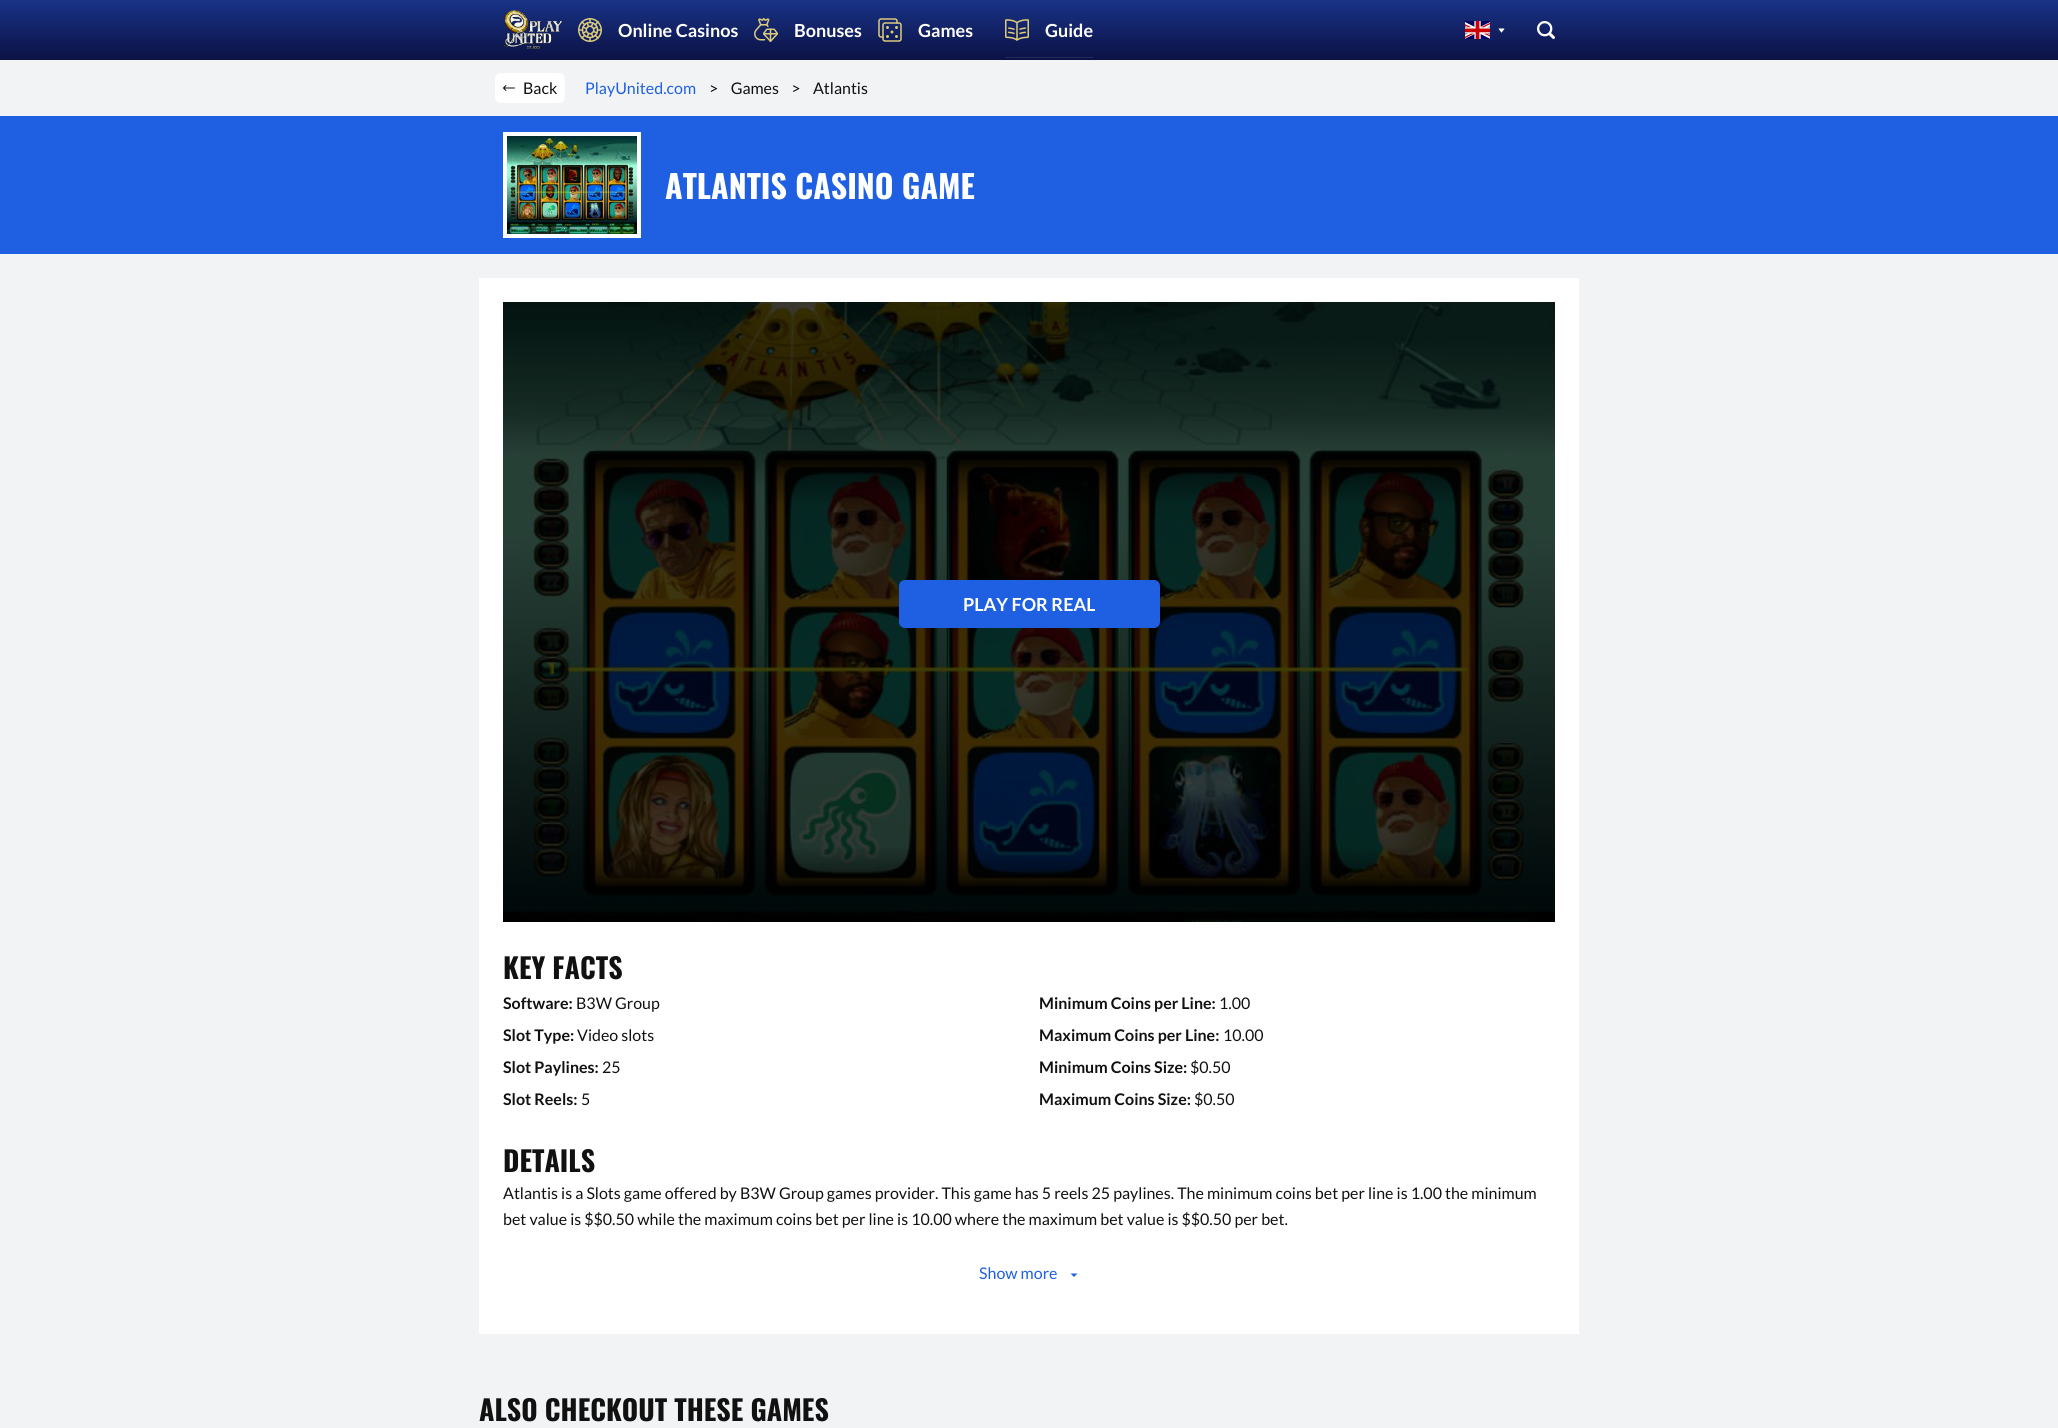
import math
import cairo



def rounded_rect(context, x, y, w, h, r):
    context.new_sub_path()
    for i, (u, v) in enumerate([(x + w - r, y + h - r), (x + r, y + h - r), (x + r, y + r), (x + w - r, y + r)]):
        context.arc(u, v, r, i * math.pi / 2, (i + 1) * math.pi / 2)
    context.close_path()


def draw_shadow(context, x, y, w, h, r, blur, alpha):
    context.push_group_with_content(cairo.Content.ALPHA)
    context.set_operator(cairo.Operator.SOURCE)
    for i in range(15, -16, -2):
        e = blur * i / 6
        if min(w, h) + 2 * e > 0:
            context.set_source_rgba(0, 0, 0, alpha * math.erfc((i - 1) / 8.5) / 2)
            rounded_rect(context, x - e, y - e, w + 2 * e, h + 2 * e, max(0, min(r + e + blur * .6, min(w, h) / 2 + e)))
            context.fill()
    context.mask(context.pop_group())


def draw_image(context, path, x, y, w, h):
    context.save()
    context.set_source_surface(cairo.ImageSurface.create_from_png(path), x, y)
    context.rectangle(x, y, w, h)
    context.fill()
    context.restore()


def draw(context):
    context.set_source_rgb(242 / 255, 243 / 255, 245 / 255)
    context.paint()
    gradient = cairo.LinearGradient(1029, 0, 1029, 60)
    gradient.add_color_stop_rgba(0, 25 / 255, 51 / 255, 135 / 255, 1)
    gradient.add_color_stop_rgba(1, 11 / 255, 17 / 255, 68 / 255, 1)
    context.set_source(gradient)
    context.rectangle(0, 0, 2058, 60)
    context.fill()
    draw_image(context, "images/1.png", 503, 10, 60, 40)
    draw_image(context, "images/2.png", 578, 18, 24, 24)
    draw_image(context, "images/3.png", 754, 18, 24, 24)
    draw_image(context, "images/4.png", 878, 18, 24, 24)
    context.set_source_rgb(36 / 255, 42 / 255, 89 / 255)
    context.rectangle(1005, 57, 88, 1)
    context.fill()
    draw_image(context, "images/5.png", 1005, 19, 24, 22)
    draw_image(context, "images/6.png", 1465, 21, 25, 18)
    draw_image(context, "images/7.png", 1498, 28, 7, 5)
    draw_image(context, "images/8.png", 1537, 21, 18, 18)
    context.set_source_rgb(1, 1, 1)
    rounded_rect(context, 495, 73, 70, 30, 6)
    context.fill()
    draw_image(context, "images/9.png", 503, 85, 12, 6)
    context.set_source_rgb(30 / 255, 96 / 255, 225 / 255)
    context.rectangle(0, 116, 2058, 138)
    context.fill()
    context.rectangle(505, 134, 134, 102)
    context.set_source_rgb(1, 1, 1)
    context.set_line_width(4)
    context.stroke()
    draw_image(context, "images/10.png", 507, 136, 130, 98)
    context.rectangle(479, 278, 1100, 1056)
    context.fill()
    draw_image(context, "images/11.png", 503, 302, 1052, 620)
    context.set_source_rgb(30 / 255, 96 / 255, 225 / 255)
    rounded_rect(context, 899, 580, 261, 48, 6)
    context.fill()
    context.save()
    context.rectangle(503, 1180, 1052, 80)
    context.clip()
    context.set_source_rgb(1, 1, 1)
    draw_shadow(context, 503, 1238, 1052, 32, 0, 10, 1)
    context.restore()
    context.new_path()
    context.move_to(1070.5, 1273.5)
    context.line_to(1074, 1277)
    context.line_to(1077.5, 1273.5)
    context.fill()
    context.select_font_face("Lato", cairo.FontSlant.NORMAL, cairo.FontWeight.BOLD)
    context.set_font_size(18)
    context.set_source_rgb(1, 1, 1)
    context.move_to(618, 37)
    context.show_text("Online Casinos")
    context.move_to(794, 37)
    context.show_text("Bonuses")
    context.move_to(918, 37)
    context.show_text("Games")
    context.move_to(1045, 37)
    context.show_text("Guide")
    context.select_font_face("Lato")
    context.set_font_size(16)
    context.set_source_rgb(17 / 255, 17 / 255, 17 / 255)
    context.move_to(523, 94)
    context.show_text("Back")
    context.set_source_rgb(30 / 255, 96 / 255, 225 / 255)
    context.move_to(585, 94)
    context.show_text("PlayUnited.com")
    context.set_source_rgb(17 / 255, 17 / 255, 17 / 255)
    context.move_to(709, 94)
    context.show_text(">    Games    >    Atlantis")
    context.select_font_face("Oswald", cairo.FontSlant.NORMAL, cairo.FontWeight.BOLD)
    context.set_font_size(32)
    context.set_source_rgb(1, 1, 1)
    context.move_to(665, 199)
    context.show_text("ATLANTIS CASINO GAME")
    context.select_font_face("Lato", cairo.FontSlant.NORMAL, cairo.FontWeight.BOLD)
    context.set_font_size(18)
    context.move_to(963, 611)
    context.show_text("PLAY FOR REAL")
    context.select_font_face("Oswald", cairo.FontSlant.NORMAL, cairo.FontWeight.BOLD)
    context.set_font_size(28)
    context.set_source_rgb(17 / 255, 17 / 255, 17 / 255)
    context.move_to(503, 979)
    context.show_text("KEY FACTS")
    context.select_font_face("Lato", cairo.FontSlant.NORMAL, cairo.FontWeight.BOLD)
    context.set_font_size(16)
    context.move_to(503, 1009)
    context.show_text("Software:")
    context.select_font_face("Lato")
    context.move_to(576, 1009)
    context.show_text("B3W Group")
    context.select_font_face("Lato", cairo.FontSlant.NORMAL, cairo.FontWeight.BOLD)
    context.move_to(1039, 1009)
    context.show_text("Minimum Coins per Line:")
    context.select_font_face("Lato")
    context.move_to(1219, 1009)
    context.show_text("1.00")
    context.select_font_face("Lato", cairo.FontSlant.NORMAL, cairo.FontWeight.BOLD)
    context.move_to(503, 1041)
    context.show_text("Slot Type:")
    context.select_font_face("Lato")
    context.move_to(577, 1041)
    context.show_text("Video slots")
    context.select_font_face("Lato", cairo.FontSlant.NORMAL, cairo.FontWeight.BOLD)
    context.move_to(1039, 1041)
    context.show_text("Maximum Coins per Line:")
    context.select_font_face("Lato")
    context.move_to(1223, 1041)
    context.show_text("10.00")
    context.select_font_face("Lato", cairo.FontSlant.NORMAL, cairo.FontWeight.BOLD)
    context.move_to(503, 1073)
    context.show_text("Slot Paylines:")
    context.select_font_face("Lato")
    context.move_to(602, 1073)
    context.show_text("25")
    context.select_font_face("Lato", cairo.FontSlant.NORMAL, cairo.FontWeight.BOLD)
    context.move_to(1039, 1073)
    context.show_text("Minimum Coins Size:")
    context.select_font_face("Lato")
    context.move_to(1190, 1073)
    context.show_text("$0.50")
    context.select_font_face("Lato", cairo.FontSlant.NORMAL, cairo.FontWeight.BOLD)
    context.move_to(503, 1105)
    context.show_text("Slot Reels:")
    context.select_font_face("Lato")
    context.move_to(581, 1105)
    context.show_text("5")
    context.select_font_face("Lato", cairo.FontSlant.NORMAL, cairo.FontWeight.BOLD)
    context.move_to(1039, 1105)
    context.show_text("Maximum Coins Size:")
    context.select_font_face("Lato")
    context.move_to(1194, 1105)
    context.show_text("$0.50")
    context.select_font_face("Oswald", cairo.FontSlant.NORMAL, cairo.FontWeight.BOLD)
    context.set_font_size(28)
    context.move_to(503, 1172)
    context.show_text("DETAILS")
    context.select_font_face("Lato")
    context.set_font_size(16)
    context.move_to(503, 1199)
    context.show_text("Atlantis is a Slots game offered by B3W Group games provider. This game has 5 reels 25 paylines. The minimum coins bet per line is 1.00 the minimum")
    context.move_to(503, 1225)
    context.show_text("bet value is $$0.50 while the maximum coins bet per line is 10.00 where the maximum bet value is $$0.50 per bet.")
    context.set_source_rgb(30 / 255, 96 / 255, 225 / 255)
    context.move_to(979, 1279)
    context.show_text("Show more")
    context.select_font_face("Oswald", cairo.FontSlant.NORMAL, cairo.FontWeight.BOLD)
    context.set_font_size(28)
    context.set_source_rgb(17 / 255, 17 / 255, 17 / 255)
    context.move_to(479, 1421)
    context.show_text("ALSO CHECKOUT THESE GAMES")


surface = cairo.ImageSurface(cairo.Format.RGB24, 2058, 1428)
context = cairo.Context(surface)
options = cairo.FontOptions()
options.set_hint_metrics(cairo.HintMetrics.OFF)
options.set_hint_style(cairo.HintStyle.NONE)
context.set_font_options(options)
context.set_miter_limit(4)
draw(context)
surface.write_to_png("out.png")
